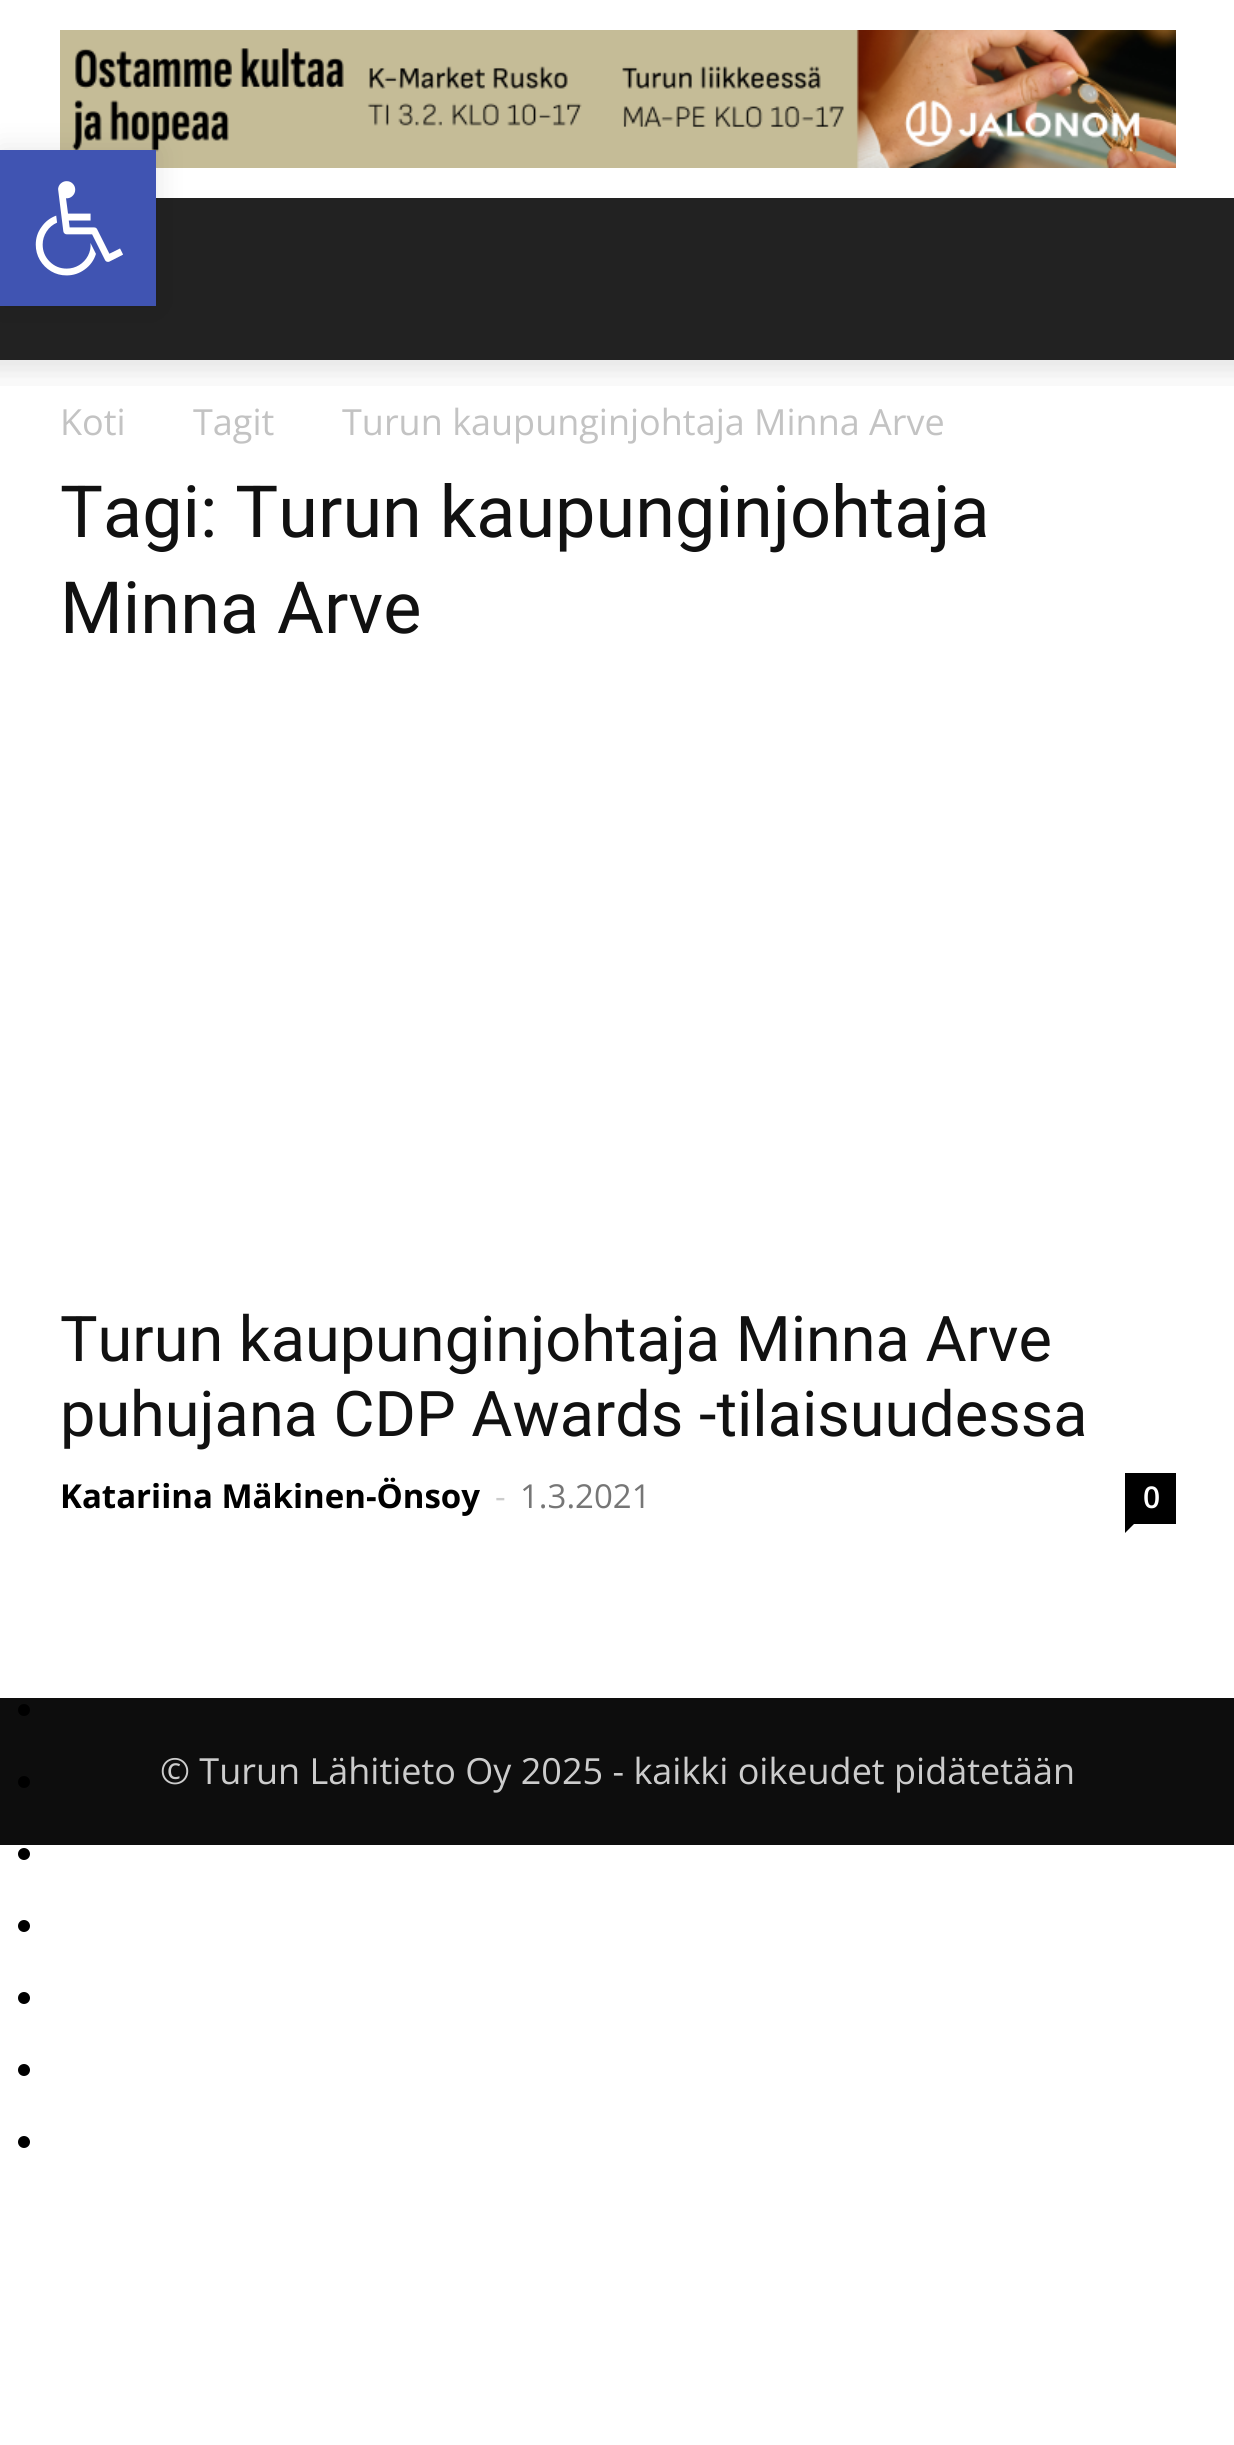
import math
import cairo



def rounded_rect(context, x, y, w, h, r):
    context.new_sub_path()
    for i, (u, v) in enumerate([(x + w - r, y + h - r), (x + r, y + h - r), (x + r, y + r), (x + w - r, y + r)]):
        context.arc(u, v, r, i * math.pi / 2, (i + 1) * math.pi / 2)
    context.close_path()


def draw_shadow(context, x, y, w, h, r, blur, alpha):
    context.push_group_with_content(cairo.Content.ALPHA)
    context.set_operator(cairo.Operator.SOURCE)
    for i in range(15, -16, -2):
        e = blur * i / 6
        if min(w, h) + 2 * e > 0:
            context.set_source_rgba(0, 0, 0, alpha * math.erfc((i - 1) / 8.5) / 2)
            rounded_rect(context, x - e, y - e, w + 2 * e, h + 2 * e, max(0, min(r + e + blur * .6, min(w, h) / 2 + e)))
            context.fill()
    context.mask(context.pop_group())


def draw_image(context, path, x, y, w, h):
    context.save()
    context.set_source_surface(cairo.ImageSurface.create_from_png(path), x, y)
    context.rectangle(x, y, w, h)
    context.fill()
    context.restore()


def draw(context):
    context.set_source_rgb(1, 1, 1)
    context.paint()
    draw_image(context, "images/2.png", 60, 30, 1116, 138)
    context.set_source_rgb(34 / 255, 34 / 255, 34 / 255)
    context.rectangle(0, 198, 1234, 162)
    context.fill()
    context.set_source_rgb(0, 0, 0)
    draw_shadow(context, 0, 150, 156, 156, 0, 15, 0.1)
    context.set_source_rgb(64 / 255, 84 / 255, 178 / 255)
    context.rectangle(0, 150, 156, 156)
    context.fill()
    draw_image(context, "images/1.png", 35, 181, 88, 95)
    draw_image(context, "images/3.png", 0, 360, 1234, 26)
    context.set_source_rgb(0, 0, 0)
    context.rectangle(1125, 1473, 51, 51)
    context.fill()
    context.new_path()
    context.move_to(1125, 1524)
    context.line_to(1134, 1524)
    context.line_to(1125, 1533)
    context.close_path()
    context.fill()
    context.set_source_rgb(13 / 255, 13 / 255, 13 / 255)
    context.rectangle(0, 1698, 1234, 147)
    context.fill()
    context.set_source_rgb(0, 0, 0)
    context.arc(24, 1710, 6, 0, 2 * math.pi)
    context.fill()
    context.arc(24, 1782, 6, 0, 2 * math.pi)
    context.fill()
    context.arc(24, 1854, 6, 0, 2 * math.pi)
    context.fill()
    context.arc(24, 1926, 6, 0, 2 * math.pi)
    context.fill()
    context.arc(24, 1998, 6, 0, 2 * math.pi)
    context.fill()
    context.arc(24, 2070, 6, 0, 2 * math.pi)
    context.fill()
    context.arc(24, 2142, 6, 0, 2 * math.pi)
    context.fill()
    context.select_font_face("Open Sans")
    context.set_font_size(36)
    context.set_source_rgb(195 / 255, 195 / 255, 195 / 255)
    context.move_to(60, 435)
    context.show_text("Koti")
    context.move_to(193, 435)
    context.show_text("Tagit")
    context.move_to(342, 435)
    context.show_text("Turun kaupunginjohtaja Minna Arve")
    context.select_font_face("Roboto")
    context.set_font_size(72)
    context.set_source_rgb(17 / 255, 17 / 255, 17 / 255)
    context.move_to(60, 537)
    context.show_text("Tagi: Turun kaupunginjohtaja")
    context.move_to(60, 633)
    context.show_text("Minna Arve")
    context.set_font_size(63)
    context.move_to(60, 1361)
    context.show_text("Turun kaupunginjohtaja Minna Arve")
    context.move_to(60, 1436)
    context.show_text("puhujana CDP Awards -tilaisuudessa")
    context.select_font_face("Open Sans", cairo.FontSlant.NORMAL, cairo.FontWeight.BOLD)
    context.set_font_size(33)
    context.set_source_rgb(0, 0, 0)
    context.move_to(60, 1508)
    context.show_text("Katariina Mäkinen-Önsoy")
    context.select_font_face("Open Sans")
    context.set_source_rgb(204 / 255, 204 / 255, 204 / 255)
    context.move_to(495, 1508)
    context.show_text("-")
    context.set_source_rgb(118 / 255, 118 / 255, 118 / 255)
    context.move_to(520, 1508)
    context.show_text("1.3.2021")
    context.select_font_face("Open Sans SemiBold")
    context.set_font_size(30)
    context.set_source_rgb(1, 1, 1)
    context.move_to(1143, 1508)
    context.show_text("0")
    context.select_font_face("Open Sans")
    context.set_font_size(36)
    context.set_source_rgb(204 / 255, 204 / 255, 204 / 255)
    context.move_to(160, 1784)
    context.show_text("© Turun Lähitieto Oy 2025 - kaikki oikeudet pidätetään")


surface = cairo.ImageSurface(cairo.Format.RGB24, 1234, 2445)
context = cairo.Context(surface)
options = cairo.FontOptions()
options.set_hint_metrics(cairo.HintMetrics.OFF)
options.set_hint_style(cairo.HintStyle.NONE)
context.set_font_options(options)
context.set_miter_limit(4)
draw(context)
surface.write_to_png("out.png")
